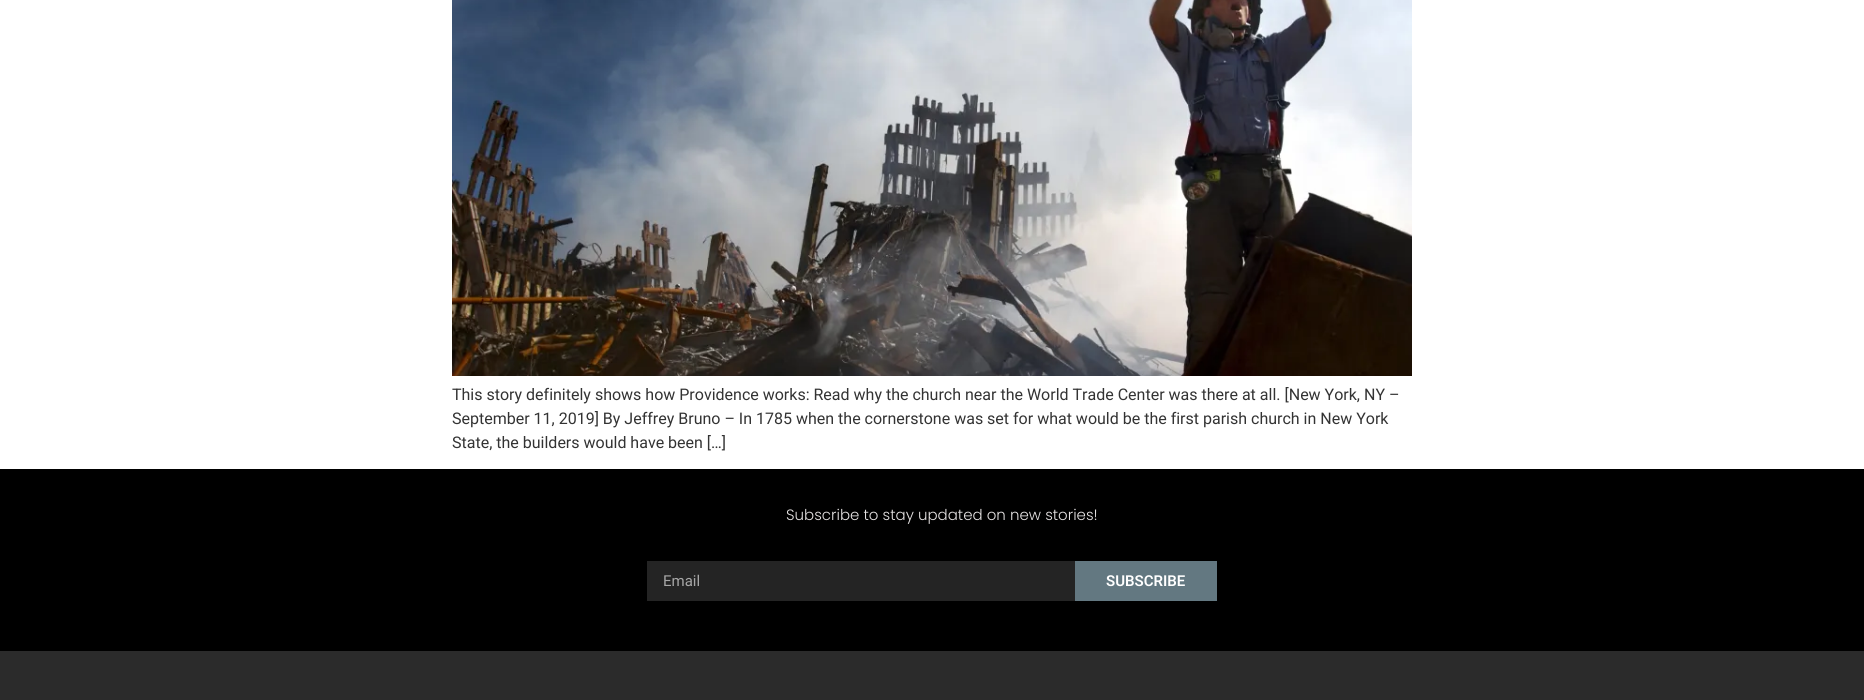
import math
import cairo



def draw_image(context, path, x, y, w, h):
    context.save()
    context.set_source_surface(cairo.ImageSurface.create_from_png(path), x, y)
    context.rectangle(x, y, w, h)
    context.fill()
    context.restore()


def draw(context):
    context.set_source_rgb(1, 1, 1)
    context.paint()
    draw_image(context, "images/1.png", 452, 0, 960, 376)
    context.set_source_rgb(0, 0, 0)
    context.rectangle(0, 469, 1864, 182)
    context.fill()
    context.set_source_rgb(36 / 255, 36 / 255, 36 / 255)
    context.rectangle(647, 561, 428, 40)
    context.fill()
    context.set_source_rgb(99 / 255, 120 / 255, 129 / 255)
    context.rectangle(1075, 561, 142, 40)
    context.fill()
    context.set_source_rgb(43 / 255, 43 / 255, 43 / 255)
    context.rectangle(0, 651, 1864, 49)
    context.fill()
    context.select_font_face("Roboto")
    context.set_font_size(16)
    context.set_source_rgb(51 / 255, 51 / 255, 51 / 255)
    context.move_to(452, 400)
    context.show_text("This story definitely shows how Providence works: Read why the church near the World Trade Center was there at all. [New York, NY –")
    context.move_to(452, 424)
    context.show_text("September 11, 2019] By Jeffrey Bruno – In 1785 when the cornerstone was set for what would be the first parish church in New York")
    context.move_to(452, 448)
    context.show_text("State, the builders would have been […]")
    context.select_font_face("Poppins Light")
    context.set_font_size(15)
    context.set_source_rgb(230 / 255, 227 / 255, 227 / 255)
    context.move_to(786, 520)
    context.show_text("Subscribe to stay updated on new stories!")
    context.select_font_face("Roboto")
    context.set_source_rgb(167 / 255, 167 / 255, 167 / 255)
    context.move_to(663, 586)
    context.show_text("Email")
    context.select_font_face("Roboto SemiBold")
    context.set_source_rgb(1, 1, 1)
    context.move_to(1106, 586)
    context.show_text("SUBSCRIBE")


surface = cairo.ImageSurface(cairo.Format.RGB24, 1864, 700)
context = cairo.Context(surface)
options = cairo.FontOptions()
options.set_hint_metrics(cairo.HintMetrics.OFF)
options.set_hint_style(cairo.HintStyle.NONE)
context.set_font_options(options)
context.set_miter_limit(4)
draw(context)
surface.write_to_png("out.png")
